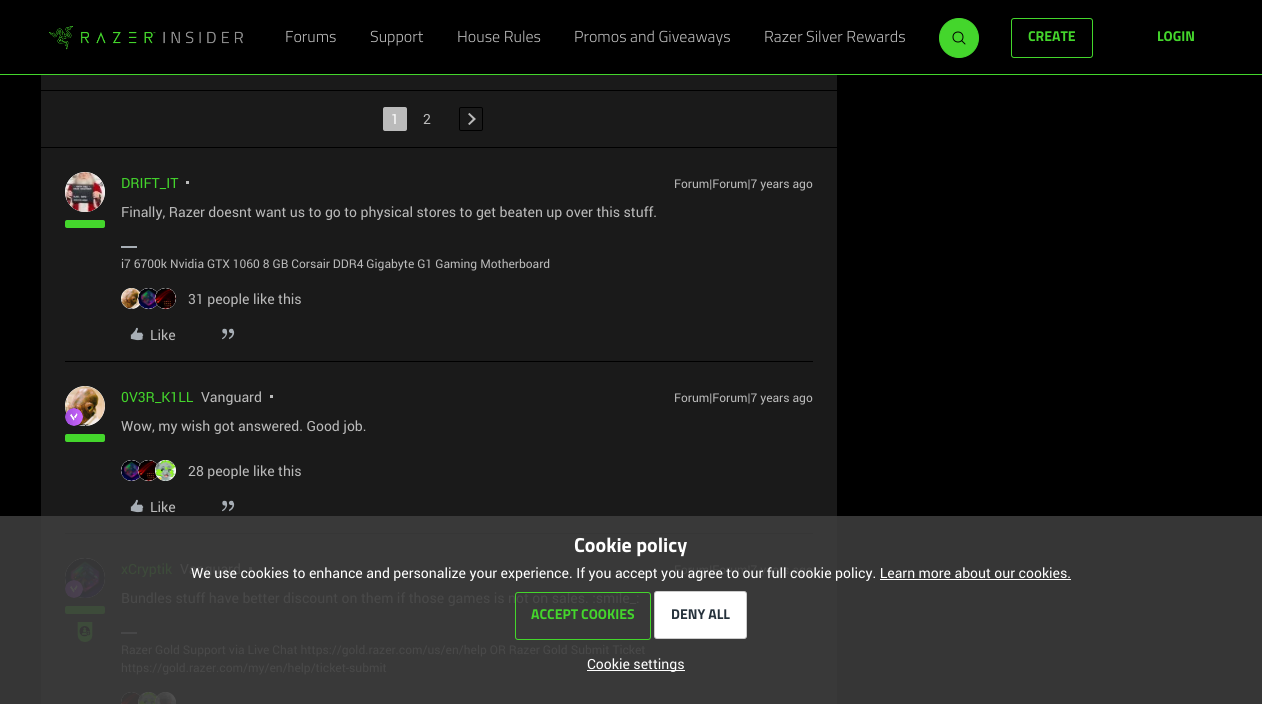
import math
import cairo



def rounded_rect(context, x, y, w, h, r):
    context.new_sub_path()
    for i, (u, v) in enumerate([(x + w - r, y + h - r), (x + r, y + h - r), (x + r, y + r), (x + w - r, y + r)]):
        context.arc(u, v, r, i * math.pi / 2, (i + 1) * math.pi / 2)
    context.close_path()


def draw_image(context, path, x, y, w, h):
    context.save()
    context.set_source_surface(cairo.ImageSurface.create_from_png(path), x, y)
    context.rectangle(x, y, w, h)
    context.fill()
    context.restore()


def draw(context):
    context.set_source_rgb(0, 0, 0)
    context.paint()
    context.set_source_rgb(54 / 255, 54 / 255, 54 / 255)
    context.rectangle(0, 516, 1262, 188)
    context.fill()
    context.set_source_rgb(68 / 255, 214 / 255, 44 / 255)
    context.rectangle(0, 74, 1262, 1)
    context.fill()
    draw_image(context, "images/1.png", 49, 26, 194, 24)
    context.arc(959, 38, 19.5, 0, 2 * math.pi)
    context.fill_preserve()
    context.set_source_rgb(68 / 255, 214 / 255, 45 / 255)
    context.set_line_width(1)
    context.stroke()
    context.arc(958, 37, 5, 0, 2 * math.pi)
    context.set_source_rgb(0, 0, 0)
    context.stroke()
    context.new_path()
    context.move_to(962, 41)
    context.line_to(965, 44)
    context.set_line_cap(cairo.LineCap.ROUND)
    context.stroke()
    rounded_rect(context, 1011.5, 18.5, 81, 39, 2.5)
    context.set_source_rgb(68 / 255, 214 / 255, 44 / 255)
    context.set_line_cap(cairo.LineCap.BUTT)
    context.stroke()
    context.set_source_rgb(26 / 255, 26 / 255, 26 / 255)
    context.rectangle(41, 75, 796, 441)
    context.fill()
    context.set_source_rgb(57 / 255, 57 / 255, 57 / 255)
    context.rectangle(41, 516, 796, 188)
    context.fill()
    context.set_source_rgb(0, 0, 0)
    context.rectangle(41, 147, 796, 1)
    context.fill()
    context.rectangle(41, 90, 796, 1)
    context.fill()
    context.set_source_rgb(187 / 255, 187 / 255, 187 / 255)
    rounded_rect(context, 383, 107, 24, 24, 2)
    context.fill()
    rounded_rect(context, 459.5, 107.5, 23, 23, 1.5)
    context.set_source_rgb(0, 0, 0)
    context.stroke()
    draw_image(context, "images/2.png", 468, 113, 8, 12)
    context.set_source_rgb(1, 1, 1)
    context.arc(85, 192, 20, 0, 2 * math.pi)
    context.fill()
    draw_image(context, "images/3.png", 65, 172, 40, 40)
    context.set_source_rgb(68 / 255, 214 / 255, 44 / 255)
    rounded_rect(context, 65, 220, 40, 8, 2)
    context.fill()
    context.set_source_rgb(187 / 255, 187 / 255, 187 / 255)
    context.rectangle(186, 181, 3, 3)
    context.fill()
    context.set_source_rgb(167 / 255, 174 / 255, 181 / 255)
    context.rectangle(121, 246, 16, 2)
    context.fill()
    context.set_source_rgb(1, 1, 1)
    context.arc(131.5, 298.5, 10.5, 0, 2 * math.pi)
    context.fill()
    draw_image(context, "images/4.png", 121, 288, 19, 21)
    context.arc(148.5, 298.5, 10.5, 0, 2 * math.pi)
    context.fill()
    draw_image(context, "images/5.png", 138, 288, 19, 21)
    context.arc(165.5, 298.5, 10.5, 0, 2 * math.pi)
    context.fill()
    draw_image(context, "images/6.png", 155, 288, 21, 21)
    draw_image(context, "images/7.png", 130, 327, 14, 14)
    draw_image(context, "images/8.png", 222, 328, 13, 12)
    context.set_source_rgb(0, 0, 0)
    context.rectangle(65, 361, 748, 1)
    context.fill()
    context.set_source_rgb(1, 1, 1)
    context.arc(85, 406, 20, 0, 2 * math.pi)
    context.fill()
    draw_image(context, "images/9.png", 65, 386, 40, 40)
    draw_image(context, "images/10.png", 65, 408, 18, 18)
    context.set_source_rgb(68 / 255, 214 / 255, 44 / 255)
    rounded_rect(context, 65, 434, 40, 8, 2)
    context.fill()
    context.set_source_rgb(187 / 255, 187 / 255, 187 / 255)
    context.rectangle(270, 395, 3, 3)
    context.fill()
    context.set_source_rgb(1, 1, 1)
    context.arc(131.5, 470.5, 10.5, 0, 2 * math.pi)
    context.fill()
    draw_image(context, "images/11.png", 121, 460, 19, 21)
    context.arc(148.5, 470.5, 10.5, 0, 2 * math.pi)
    context.fill()
    draw_image(context, "images/12.png", 138, 460, 19, 21)
    context.arc(165.5, 470.5, 10.5, 0, 2 * math.pi)
    context.fill()
    draw_image(context, "images/13.png", 155, 460, 21, 21)
    draw_image(context, "images/7.png", 130, 499, 14, 14)
    draw_image(context, "images/8.png", 222, 500, 13, 12)
    context.set_source_rgb(54 / 255, 54 / 255, 54 / 255)
    context.rectangle(65, 533, 748, 1)
    context.fill()
    context.set_source_rgb(80 / 255, 80 / 255, 80 / 255)
    context.arc(85, 578, 20, 0, 2 * math.pi)
    context.fill()
    draw_image(context, "images/14.png", 65, 558, 40, 40)
    draw_image(context, "images/15.png", 65, 580, 18, 18)
    context.set_source_rgb(61 / 255, 75 / 255, 58 / 255)
    rounded_rect(context, 65, 606, 40, 8, 2)
    context.fill()
    draw_image(context, "images/16.png", 77, 622, 16, 20)
    context.set_source_rgb(73 / 255, 73 / 255, 73 / 255)
    context.rectangle(249, 567, 3, 3)
    context.fill()
    context.set_source_rgb(71 / 255, 71 / 255, 72 / 255)
    context.rectangle(121, 632, 16, 2)
    context.fill()
    context.set_source_rgb(80 / 255, 80 / 255, 80 / 255)
    context.arc(131.5, 702.5, 10.5, 0, 2 * math.pi)
    context.fill()
    draw_image(context, "images/17.png", 121, 692, 19, 12)
    context.arc(148.5, 702.5, 10.5, 0, 2 * math.pi)
    context.fill()
    draw_image(context, "images/18.png", 138, 692, 19, 12)
    context.arc(165.5, 702.5, 10.5, 0, 2 * math.pi)
    context.fill()
    draw_image(context, "images/19.png", 155, 692, 21, 12)
    context.set_source_rgb(1, 1, 1)
    context.rectangle(880, 579, 191, 1)
    context.fill()
    rounded_rect(context, 654, 591, 93, 48, 3)
    context.fill()
    rounded_rect(context, 654.5, 591.5, 92, 47, 2.5)
    context.set_source_rgba(0, 0, 0, 0.2)
    context.stroke()
    context.set_source_rgb(1, 1, 1)
    context.rectangle(587, 670, 98, 1)
    context.fill()
    context.select_font_face("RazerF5 Light")
    context.set_font_size(16)
    context.set_source_rgb(187 / 255, 187 / 255, 187 / 255)
    context.move_to(285, 42)
    context.show_text("Forums")
    context.move_to(370, 42)
    context.show_text("Support")
    context.move_to(457, 42)
    context.show_text("House Rules")
    context.move_to(574, 42)
    context.show_text("Promos and Giveaways")
    context.move_to(764, 42)
    context.show_text("Razer Silver Rewards")
    context.select_font_face("RazerF5", cairo.FontSlant.NORMAL, cairo.FontWeight.BOLD)
    context.set_font_size(14)
    context.set_source_rgb(68 / 255, 214 / 255, 44 / 255)
    context.move_to(1028, 41)
    context.show_text("CREATE")
    context.move_to(1157, 41)
    context.show_text("LOGIN")
    context.select_font_face("Roboto")
    context.set_source_rgb(1, 1, 1)
    context.move_to(391, 124)
    context.show_text("1")
    context.set_source_rgb(187 / 255, 187 / 255, 187 / 255)
    context.move_to(423, 124)
    context.show_text("2")
    context.set_source_rgb(68 / 255, 214 / 255, 44 / 255)
    context.move_to(121, 188)
    context.show_text("DRIFT_IT")
    context.set_font_size(12)
    context.set_source_rgb(187 / 255, 187 / 255, 187 / 255)
    context.move_to(674, 188)
    context.show_text("Forum|Forum|7 years ago")
    context.set_font_size(14)
    context.move_to(121, 217)
    context.show_text("Finally, Razer doesnt want us to go to physical stores to get beaten up over this stuff.")
    context.set_font_size(12)
    context.move_to(121, 268)
    context.show_text("i7 6700k Nvidia GTX 1060 8 GB Corsair DDR4 Gigabyte G1 Gaming Motherboard")
    context.set_font_size(14)
    context.move_to(188, 304)
    context.show_text("31 people like this")
    context.move_to(150, 340)
    context.show_text("Like")
    context.set_source_rgb(68 / 255, 214 / 255, 44 / 255)
    context.move_to(121, 402)
    context.show_text("0V3R_K1LL")
    context.set_source_rgb(187 / 255, 187 / 255, 187 / 255)
    context.move_to(201, 402)
    context.show_text("Vanguard")
    context.set_font_size(12)
    context.move_to(674, 402)
    context.show_text("Forum|Forum|7 years ago")
    context.set_font_size(14)
    context.move_to(121, 431)
    context.show_text("Wow, my wish got answered. Good job.")
    context.move_to(188, 476)
    context.show_text("28 people like this")
    context.move_to(150, 512)
    context.show_text("Like")
    context.set_source_rgb(61 / 255, 75 / 255, 58 / 255)
    context.move_to(121, 574)
    context.show_text("xCryptik")
    context.set_source_rgb(73 / 255, 73 / 255, 73 / 255)
    context.move_to(180, 574)
    context.show_text("Vanguard")
    context.set_font_size(12)
    context.move_to(674, 574)
    context.show_text("Forum|Forum|7 years ago")
    context.set_font_size(14)
    context.move_to(121, 603)
    context.show_text("Bundles stuff have better discount on them if those games is not on sales. :smile_:")
    context.set_font_size(12)
    context.move_to(121, 654)
    context.show_text("Razer Gold Support via Live Chat https://gold.razer.com/us/en/help OR Razer Gold Submit Ticket")
    context.move_to(121, 672)
    context.show_text("https://gold.razer.com/my/en/help/ticket-submit")
    context.select_font_face("RazerF5", cairo.FontSlant.NORMAL, cairo.FontWeight.BOLD)
    context.set_font_size(20)
    context.set_source_rgb(1, 1, 1)
    context.move_to(574, 552)
    context.show_text("Cookie policy")
    context.select_font_face("Roboto")
    context.set_font_size(14)
    context.move_to(191, 578)
    context.show_text("We use cookies to enhance and personalize your experience. If you accept you agree to our full cookie policy. Learn more about our cookies.")
    rounded_rect(context, 515.5, 592.5, 135, 47, 2.5)
    context.set_source_rgb(68 / 255, 214 / 255, 44 / 255)
    context.stroke()
    context.select_font_face("RazerF5", cairo.FontSlant.NORMAL, cairo.FontWeight.BOLD)
    context.move_to(531, 619)
    context.show_text("ACCEPT COOKIES")
    context.set_source_rgb(37 / 255, 49 / 255, 59 / 255)
    context.move_to(671, 619)
    context.show_text("DENY ALL")
    context.select_font_face("Roboto")
    context.set_source_rgb(1, 1, 1)
    context.move_to(587, 669)
    context.show_text("Cookie settings")


surface = cairo.ImageSurface(cairo.Format.RGB24, 1262, 704)
context = cairo.Context(surface)
options = cairo.FontOptions()
options.set_hint_metrics(cairo.HintMetrics.OFF)
options.set_hint_style(cairo.HintStyle.NONE)
context.set_font_options(options)
context.set_miter_limit(4)
draw(context)
surface.write_to_png("out.png")
